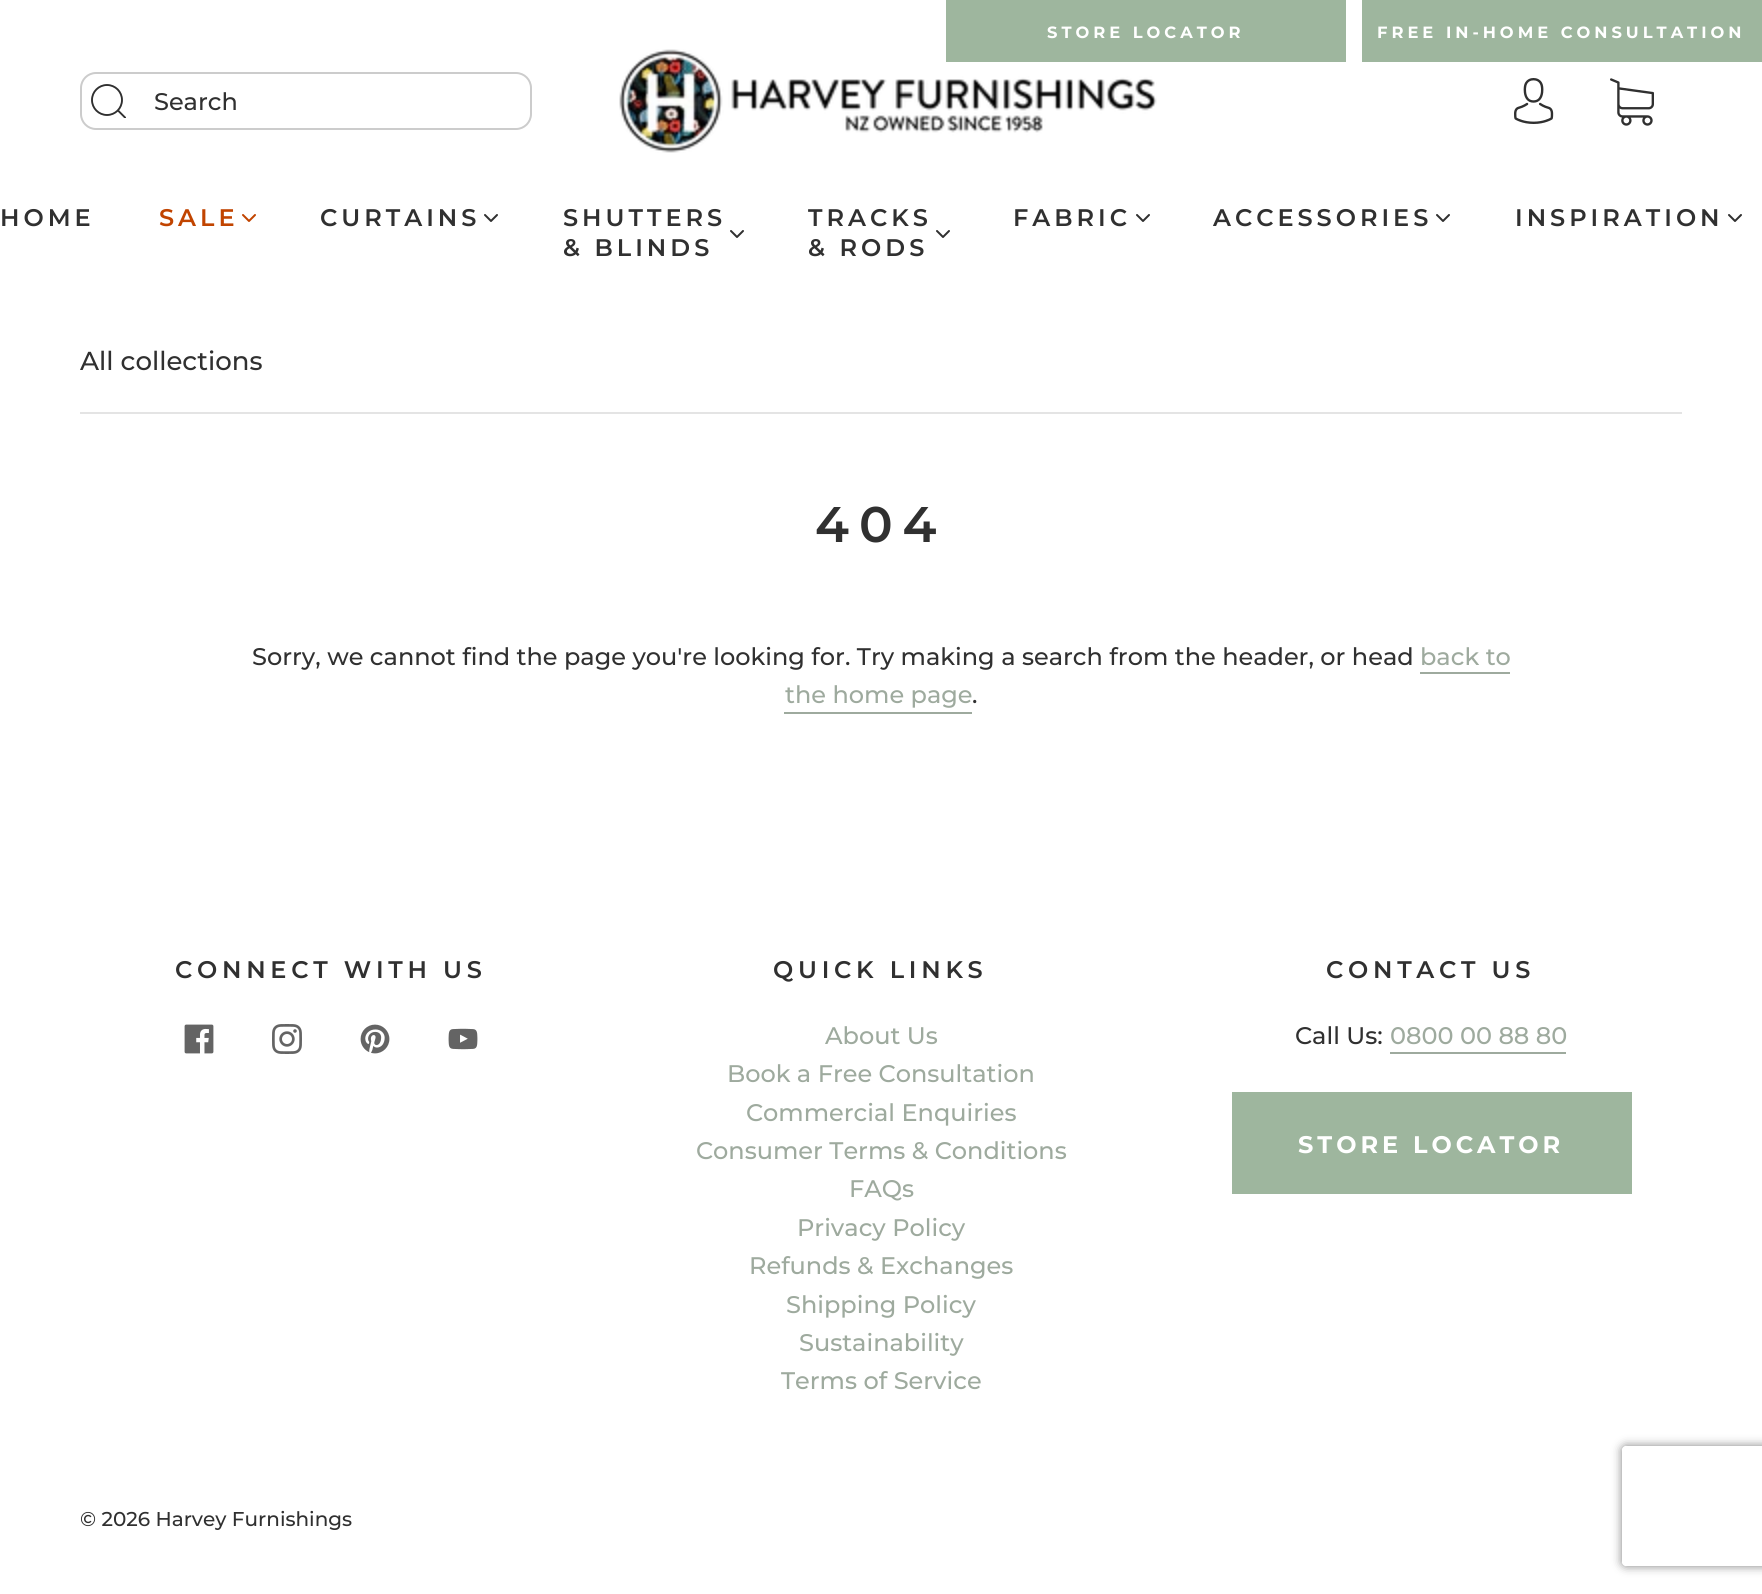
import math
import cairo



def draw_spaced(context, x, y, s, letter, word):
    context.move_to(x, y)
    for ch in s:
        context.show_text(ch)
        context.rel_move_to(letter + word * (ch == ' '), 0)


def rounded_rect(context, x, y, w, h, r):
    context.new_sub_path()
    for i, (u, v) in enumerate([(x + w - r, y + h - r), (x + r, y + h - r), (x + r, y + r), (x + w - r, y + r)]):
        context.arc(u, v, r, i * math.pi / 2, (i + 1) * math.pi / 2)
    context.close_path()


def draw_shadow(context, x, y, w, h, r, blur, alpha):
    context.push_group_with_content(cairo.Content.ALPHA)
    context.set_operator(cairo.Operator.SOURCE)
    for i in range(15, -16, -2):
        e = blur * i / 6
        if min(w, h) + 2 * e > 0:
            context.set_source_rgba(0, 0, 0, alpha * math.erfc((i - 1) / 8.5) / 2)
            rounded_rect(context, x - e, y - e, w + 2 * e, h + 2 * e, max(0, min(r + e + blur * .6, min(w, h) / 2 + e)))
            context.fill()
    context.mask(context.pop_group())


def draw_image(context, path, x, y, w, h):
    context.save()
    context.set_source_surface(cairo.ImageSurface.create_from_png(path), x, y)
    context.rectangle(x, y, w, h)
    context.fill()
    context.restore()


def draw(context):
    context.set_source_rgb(1, 1, 1)
    context.paint()
    draw_image(context, "images/3.png", 619, 49, 538, 104)
    context.set_source_rgb(158 / 255, 182 / 255, 158 / 255)
    context.rectangle(946, 0, 400, 62)
    context.fill()
    context.rectangle(1362, 0, 400, 62)
    context.fill()
    draw_image(context, "images/1.png", 1514, 78, 40, 46)
    draw_image(context, "images/2.png", 1610, 78, 44, 48)
    rounded_rect(context, 81, 73, 450, 56, 15)
    context.set_source_rgb(204 / 255, 204 / 255, 204 / 255)
    context.stroke()
    context.arc(107, 100, 15, 0, 2 * math.pi)
    context.set_source_rgb(48 / 255, 48 / 255, 48 / 255)
    context.set_line_width(1.9)
    context.stroke()
    context.save()
    context.rectangle(90, 84, 36, 34)
    context.clip()
    context.new_path()
    context.move_to(118, 110.5)
    context.line_to(128.5, 121)
    context.stroke()
    context.restore()
    draw_image(context, "images/4.png", 242, 214, 14, 8)
    draw_image(context, "images/5.png", 484, 214, 14, 8)
    draw_image(context, "images/5.png", 730, 230, 14, 8)
    draw_image(context, "images/5.png", 936, 230, 14, 8)
    draw_image(context, "images/5.png", 1136, 214, 14, 8)
    draw_image(context, "images/5.png", 1436, 214, 14, 8)
    draw_image(context, "images/5.png", 1728, 214, 14, 8)
    context.set_source_rgb(228 / 255, 228 / 255, 228 / 255)
    context.rectangle(80, 412, 1602, 2)
    context.fill()
    context.set_source_rgb(158 / 255, 170 / 255, 158 / 255)
    context.rectangle(1420, 672, 90, 2)
    context.fill()
    context.rectangle(784, 712, 188, 2)
    context.fill()
    draw_image(context, "images/6.png", 184, 1024, 30, 30)
    draw_image(context, "images/7.png", 272, 1024, 30, 30)
    draw_image(context, "images/8.png", 360, 1024, 30, 30)
    draw_image(context, "images/9.png", 448, 1028, 30, 22)
    context.rectangle(1390, 1052, 176, 2)
    context.fill()
    context.set_source_rgb(158 / 255, 182 / 255, 158 / 255)
    context.rectangle(1232, 1092, 400, 102)
    context.fill()
    context.save()
    context.set_fill_rule(cairo.FillRule.EVEN_ODD)
    context.new_path()
    context.move_to(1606, 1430)
    context.line_to(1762, 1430)
    context.line_to(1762, 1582)
    context.line_to(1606, 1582)
    context.close_path()
    context.move_to(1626, 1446)
    context.line_to(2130, 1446)
    context.curve_to(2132, 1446, 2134, 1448, 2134, 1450)
    context.line_to(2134, 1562)
    context.curve_to(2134, 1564, 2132, 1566, 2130, 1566)
    context.line_to(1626, 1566)
    context.curve_to(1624, 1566, 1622, 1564, 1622, 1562)
    context.line_to(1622, 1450)
    context.curve_to(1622, 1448, 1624, 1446, 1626, 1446)
    context.close_path()
    context.clip()
    context.set_source_rgb(128 / 255, 128 / 255, 128 / 255)
    draw_shadow(context, 1622, 1446, 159, 120, 4, 5, 1)
    context.restore()
    context.select_font_face("Montserrat", cairo.FontSlant.NORMAL, cairo.FontWeight.BOLD)
    context.set_font_size(16.3)
    context.set_source_rgb(1, 1, 1)
    draw_spaced(context, 1047, 38, "STORE LOCATOR", 4, 0)
    draw_spaced(context, 1377, 38, "FREE IN-HOME CONSULTATION", 4, 0)
    context.select_font_face("Montserrat Medium")
    context.set_font_size(24)
    context.set_source_rgb(48 / 255, 48 / 255, 48 / 255)
    context.move_to(154, 110)
    context.show_text("Search")
    context.select_font_face("Montserrat SemiBold")
    draw_spaced(context, 0, 226, "HOME", 4, 0)
    context.set_source_rgb(193 / 255, 68 / 255, 0)
    draw_spaced(context, 159, 226, "SALE", 4, 0)
    context.set_source_rgb(48 / 255, 48 / 255, 48 / 255)
    draw_spaced(context, 320, 226, "CURTAINS", 4, 0)
    draw_spaced(context, 563, 226, "SHUTTERS", 4, 0)
    draw_spaced(context, 563, 256, "& BLINDS", 4, 0)
    draw_spaced(context, 808, 226, "TRACKS", 4, 0)
    draw_spaced(context, 808, 256, "& RODS", 4, 0)
    draw_spaced(context, 1013, 226, "FABRIC", 4, 0)
    draw_spaced(context, 1213, 226, "ACCESSORIES", 4, 0)
    draw_spaced(context, 1515, 226, "INSPIRATION", 4, 0)
    context.select_font_face("Montserrat Medium")
    context.set_font_size(26)
    context.move_to(80, 370)
    context.show_text("All collections")
    context.select_font_face("Montserrat SemiBold")
    context.set_font_size(50)
    draw_spaced(context, 815, 542, "404", 10, 0)
    context.select_font_face("Montserrat Medium")
    context.set_font_size(24)
    context.move_to(252, 665)
    context.show_text("Sorry, we cannot find the page you're looking for. Try making a search from the header, or head")
    context.set_source_rgb(158 / 255, 170 / 255, 158 / 255)
    context.move_to(1420, 665)
    context.show_text("back to")
    context.move_to(785, 703)
    context.show_text("the home page")
    context.set_source_rgb(48 / 255, 48 / 255, 48 / 255)
    context.move_to(972, 703)
    context.show_text(".")
    context.select_font_face("Montserrat SemiBold")
    draw_spaced(context, 175, 978, "CONNECT WITH US", 4.75, 0)
    draw_spaced(context, 773, 978, "QUICK LINKS", 4.75, 0)
    context.select_font_face("Montserrat Medium")
    context.set_source_rgb(158 / 255, 170 / 255, 158 / 255)
    context.move_to(825, 1044)
    context.show_text("About Us")
    context.move_to(727, 1082)
    context.show_text("Book a Free Consultation")
    context.move_to(746, 1121)
    context.show_text("Commercial Enquiries")
    context.move_to(696, 1159)
    context.show_text("Consumer Terms & Conditions")
    context.move_to(849, 1197)
    context.show_text("FAQs")
    context.move_to(797, 1236)
    context.show_text("Privacy Policy")
    context.move_to(749, 1274)
    context.show_text("Refunds & Exchanges")
    context.move_to(786, 1313)
    context.show_text("Shipping Policy")
    context.move_to(799, 1351)
    context.show_text("Sustainability")
    context.move_to(781, 1389)
    context.show_text("Terms of Service")
    context.select_font_face("Montserrat SemiBold")
    context.set_source_rgb(48 / 255, 48 / 255, 48 / 255)
    draw_spaced(context, 1326, 978, "CONTACT US", 4.75, 0)
    context.select_font_face("Montserrat Medium")
    context.move_to(1295, 1044)
    context.show_text("Call Us:")
    context.set_source_rgb(158 / 255, 170 / 255, 158 / 255)
    context.move_to(1390, 1044)
    context.show_text("0800 00 88 80")
    context.select_font_face("Montserrat", cairo.FontSlant.NORMAL, cairo.FontWeight.BOLD)
    context.set_source_rgb(1, 1, 1)
    draw_spaced(context, 1298, 1153, "STORE LOCATOR", 4, 0)
    context.select_font_face("Montserrat Medium")
    context.set_font_size(20)
    context.set_source_rgb(48 / 255, 48 / 255, 48 / 255)
    context.move_to(80, 1526)
    context.show_text("© 2026 Harvey Furnishings")


surface = cairo.ImageSurface(cairo.Format.RGB24, 1762, 1594)
context = cairo.Context(surface)
options = cairo.FontOptions()
options.set_hint_metrics(cairo.HintMetrics.OFF)
options.set_hint_style(cairo.HintStyle.NONE)
context.set_font_options(options)
context.set_miter_limit(4)
draw(context)
surface.write_to_png("out.png")
